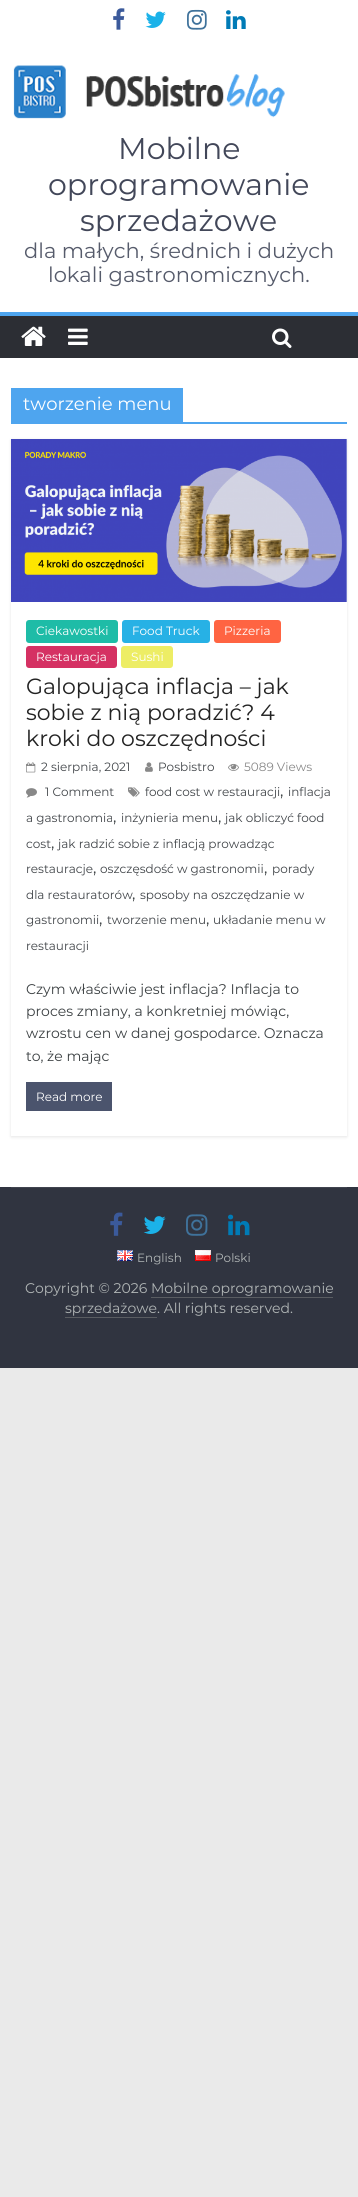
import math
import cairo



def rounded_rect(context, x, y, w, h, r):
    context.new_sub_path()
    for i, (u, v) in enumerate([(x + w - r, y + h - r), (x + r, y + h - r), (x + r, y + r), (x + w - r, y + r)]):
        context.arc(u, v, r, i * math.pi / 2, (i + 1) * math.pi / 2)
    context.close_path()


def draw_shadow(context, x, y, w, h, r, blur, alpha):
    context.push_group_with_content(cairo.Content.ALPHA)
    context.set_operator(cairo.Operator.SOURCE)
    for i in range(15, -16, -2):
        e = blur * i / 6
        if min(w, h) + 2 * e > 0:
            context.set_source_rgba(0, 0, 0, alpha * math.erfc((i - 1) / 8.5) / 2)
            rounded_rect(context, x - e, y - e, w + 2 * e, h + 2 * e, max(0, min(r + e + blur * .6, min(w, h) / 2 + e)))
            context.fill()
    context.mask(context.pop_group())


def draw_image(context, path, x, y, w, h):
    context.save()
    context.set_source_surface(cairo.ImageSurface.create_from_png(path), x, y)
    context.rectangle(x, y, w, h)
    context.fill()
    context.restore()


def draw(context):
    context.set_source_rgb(234 / 255, 234 / 255, 234 / 255)
    context.paint()
    context.set_source_rgb(1, 1, 1)
    context.rectangle(0, 0, 358, 312)
    context.fill()
    draw_image(context, "images/1.png", 113, 8, 12, 22)
    draw_image(context, "images/2.png", 145, 11, 21, 17)
    draw_image(context, "images/3.png", 187, 9, 20, 21)
    draw_image(context, "images/4.png", 226, 10, 20, 19)
    draw_image(context, "images/5.png", 13, 65, 272, 54)
    context.set_source_rgb(44 / 255, 46 / 255, 52 / 255)
    context.rectangle(0, 316, 358, 42)
    context.fill()
    context.set_source_rgb(78 / 255, 165 / 255, 239 / 255)
    context.rectangle(0, 312, 358, 4)
    context.fill()
    draw_image(context, "images/6.png", 21, 326, 25, 20)
    draw_image(context, "images/7.png", 68, 328, 20, 17)
    draw_image(context, "images/8.png", 272, 328, 20, 20)
    context.set_source_rgb(1, 1, 1)
    context.rectangle(0, 358, 358, 829)
    context.fill()
    context.set_source_rgb(78 / 255, 165 / 255, 239 / 255)
    context.rectangle(11, 422, 336, 2)
    context.fill()
    context.rectangle(11, 388, 172, 34)
    context.fill()
    context.save()
    context.set_fill_rule(cairo.FillRule.EVEN_ODD)
    context.new_path()
    context.move_to(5, 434)
    context.line_to(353, 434)
    context.line_to(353, 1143)
    context.line_to(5, 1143)
    context.close_path()
    context.move_to(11, 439)
    context.line_to(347, 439)
    context.line_to(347, 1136)
    context.line_to(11, 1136)
    context.close_path()
    context.clip()
    context.set_source_rgb(0, 0, 0)
    draw_shadow(context, 11, 440, 336, 697, 0, 1.5, 0.1)
    context.restore()
    draw_image(context, "images/9.png", 11, 439, 336, 163)
    context.set_source_rgb(30 / 255, 188 / 255, 167 / 255)
    rounded_rect(context, 26, 620, 92, 23, 3)
    context.fill()
    context.set_source_rgb(39 / 255, 177 / 255, 229 / 255)
    rounded_rect(context, 122, 620, 88, 23, 3)
    context.fill()
    context.set_source_rgb(1, 100 / 255, 66 / 255)
    rounded_rect(context, 214, 620, 67, 23, 3)
    context.fill()
    context.set_source_rgb(213 / 255, 49 / 255, 99 / 255)
    rounded_rect(context, 26, 646, 91, 22, 3)
    context.fill()
    context.set_source_rgb(237 / 255, 237 / 255, 101 / 255)
    rounded_rect(context, 121, 646, 52, 22, 3)
    context.fill()
    draw_image(context, "images/10.png", 26, 762, 10, 11)
    draw_image(context, "images/11.png", 145, 762, 8, 10)
    draw_image(context, "images/12.png", 228, 763, 11, 8)
    draw_image(context, "images/13.png", 128, 787, 12, 10)
    draw_image(context, "images/14.png", 26, 788, 11, 10)
    context.set_source_rgb(75 / 255, 84 / 255, 109 / 255)
    context.rectangle(26, 1082, 86, 29)
    context.fill()
    context.set_source_rgb(48 / 255, 52 / 255, 64 / 255)
    context.rectangle(0, 1187, 358, 181)
    context.fill()
    context.set_source_rgb(64 / 255, 68 / 255, 79 / 255)
    context.rectangle(11, 1187, 336, 1)
    context.fill()
    draw_image(context, "images/15.png", 110, 1212, 13, 24)
    draw_image(context, "images/16.png", 143, 1216, 23, 18)
    draw_image(context, "images/17.png", 186, 1214, 22, 22)
    draw_image(context, "images/18.png", 228, 1214, 22, 22)
    draw_image(context, "images/19.png", 117, 1250, 16, 11)
    draw_image(context, "images/20.png", 195, 1250, 16, 11)
    context.set_source_rgb(90 / 255, 93 / 255, 98 / 255)
    context.rectangle(151, 1297, 182, 1)
    context.fill()
    context.rectangle(65, 1317, 92, 1)
    context.fill()
    context.select_font_face("Montserrat Thin")
    context.set_font_size(30)
    context.set_source_rgb(66 / 255, 71 / 255, 89 / 255)
    context.move_to(118, 159)
    context.show_text("Mobilne")
    context.move_to(48, 195)
    context.show_text("oprogramowanie")
    context.move_to(80, 231)
    context.show_text("sprzedażowe")
    context.set_font_size(21)
    context.set_source_rgb(86 / 255, 91 / 255, 107 / 255)
    context.move_to(24, 258)
    context.show_text("dla małych, średnich i dużych")
    context.move_to(48, 282)
    context.show_text("lokali gastronomicznych.")
    context.set_font_size(18)
    context.set_source_rgb(1, 1, 1)
    context.move_to(23, 410)
    context.show_text("tworzenie menu")
    context.set_font_size(12)
    context.move_to(36, 635)
    context.show_text("Ciekawostki")
    context.move_to(132, 635)
    context.show_text("Food Truck")
    context.move_to(224, 635)
    context.show_text("Pizzeria")
    context.move_to(36, 661)
    context.show_text("Restauracja")
    context.move_to(131, 661)
    context.show_text("Sushi")
    context.set_font_size(22)
    context.set_source_rgb(35 / 255, 35 / 255, 35 / 255)
    context.move_to(26, 694)
    context.show_text("Galopująca inflacja – jak")
    context.move_to(26, 720)
    context.show_text("sobie z nią poradzić? 4")
    context.move_to(26, 746)
    context.show_text("kroki do oszczędności")
    context.set_font_size(12)
    context.set_source_rgb(65 / 255, 69 / 255, 73 / 255)
    context.move_to(41, 771)
    context.show_text("2 sierpnia, 2021")
    context.move_to(158, 771)
    context.show_text("Posbistro")
    context.set_source_rgb(136 / 255, 136 / 255, 136 / 255)
    context.move_to(244, 771)
    context.show_text("5089 Views")
    context.set_source_rgb(65 / 255, 69 / 255, 73 / 255)
    context.move_to(145, 796)
    context.show_text("food cost w restauracji")
    context.set_font_size(16)
    context.set_source_rgb(59 / 255, 64 / 255, 66 / 255)
    context.move_to(280, 796)
    context.show_text(",")
    context.set_font_size(12)
    context.set_source_rgb(65 / 255, 69 / 255, 73 / 255)
    context.move_to(288, 796)
    context.show_text("inflacja")
    context.move_to(26, 822)
    context.show_text("a gastronomia")
    context.set_font_size(16)
    context.set_source_rgb(59 / 255, 64 / 255, 66 / 255)
    context.move_to(113, 822)
    context.show_text(",")
    context.set_font_size(12)
    context.set_source_rgb(65 / 255, 69 / 255, 73 / 255)
    context.move_to(121, 822)
    context.show_text("inżynieria menu")
    context.set_font_size(16)
    context.set_source_rgb(59 / 255, 64 / 255, 66 / 255)
    context.move_to(218, 822)
    context.show_text(",")
    context.set_font_size(12)
    context.set_source_rgb(65 / 255, 69 / 255, 73 / 255)
    context.move_to(225, 822)
    context.show_text("jak obliczyć food")
    context.move_to(26, 848)
    context.show_text("cost")
    context.set_font_size(16)
    context.set_source_rgb(59 / 255, 64 / 255, 66 / 255)
    context.move_to(51, 848)
    context.show_text(",")
    context.set_font_size(12)
    context.set_source_rgb(65 / 255, 69 / 255, 73 / 255)
    context.move_to(58, 848)
    context.show_text("jak radzić sobie z inflacją prowadząc")
    context.move_to(26, 873)
    context.show_text("restauracje")
    context.set_font_size(16)
    context.set_source_rgb(59 / 255, 64 / 255, 66 / 255)
    context.move_to(93, 873)
    context.show_text(",")
    context.set_font_size(12)
    context.set_source_rgb(65 / 255, 69 / 255, 73 / 255)
    context.move_to(100, 873)
    context.show_text("oszczęsdość w gastronomii")
    context.set_font_size(16)
    context.set_source_rgb(59 / 255, 64 / 255, 66 / 255)
    context.move_to(264, 873)
    context.show_text(",")
    context.set_font_size(12)
    context.set_source_rgb(65 / 255, 69 / 255, 73 / 255)
    context.move_to(272, 873)
    context.show_text("porady")
    context.move_to(26, 899)
    context.show_text("dla restauratorów")
    context.set_font_size(16)
    context.set_source_rgb(59 / 255, 64 / 255, 66 / 255)
    context.move_to(132, 899)
    context.show_text(",")
    context.set_font_size(12)
    context.set_source_rgb(65 / 255, 69 / 255, 73 / 255)
    context.move_to(140, 899)
    context.show_text("sposoby na oszczędzanie w")
    context.move_to(26, 924)
    context.show_text("gastronomii")
    context.set_font_size(16)
    context.set_source_rgb(59 / 255, 64 / 255, 66 / 255)
    context.move_to(99, 924)
    context.show_text(",")
    context.set_font_size(12)
    context.set_source_rgb(65 / 255, 69 / 255, 73 / 255)
    context.move_to(107, 924)
    context.show_text("tworzenie menu")
    context.set_font_size(16)
    context.set_source_rgb(59 / 255, 64 / 255, 66 / 255)
    context.move_to(206, 924)
    context.show_text(",")
    context.set_font_size(12)
    context.set_source_rgb(65 / 255, 69 / 255, 73 / 255)
    context.move_to(213, 924)
    context.show_text("układanie menu w")
    context.move_to(26, 950)
    context.show_text("restauracji")
    context.move_to(45, 796)
    context.show_text("1 Comment")
    context.set_font_size(14)
    context.set_source_rgb(59 / 255, 64 / 255, 66 / 255)
    context.move_to(26, 994)
    context.show_text("Czym właściwie jest inflacja? Inflacja to")
    context.move_to(26, 1016)
    context.show_text("proces zmiany, a konkretniej mówiąc,")
    context.move_to(26, 1038)
    context.show_text("wzrostu cen w danej gospodarce. Oznacza")
    context.move_to(26, 1061)
    context.show_text("to, że mając")
    context.set_font_size(12)
    context.set_source_rgb(1, 1, 1)
    context.move_to(36, 1101)
    context.show_text("Read more")
    context.set_source_rgb(177 / 255, 182 / 255, 182 / 255)
    context.move_to(137, 1262)
    context.show_text("English")
    context.move_to(215, 1262)
    context.show_text("Polski")
    context.set_font_size(14)
    context.move_to(25, 1293)
    context.show_text("Copyright © 2026 Mobilne oprogramowanie")
    context.move_to(65, 1313)
    context.show_text("sprzedażowe. All rights reserved.")


surface = cairo.ImageSurface(cairo.Format.RGB24, 358, 2197)
context = cairo.Context(surface)
options = cairo.FontOptions()
options.set_hint_metrics(cairo.HintMetrics.OFF)
options.set_hint_style(cairo.HintStyle.NONE)
context.set_font_options(options)
context.set_miter_limit(4)
draw(context)
surface.write_to_png("out.png")
